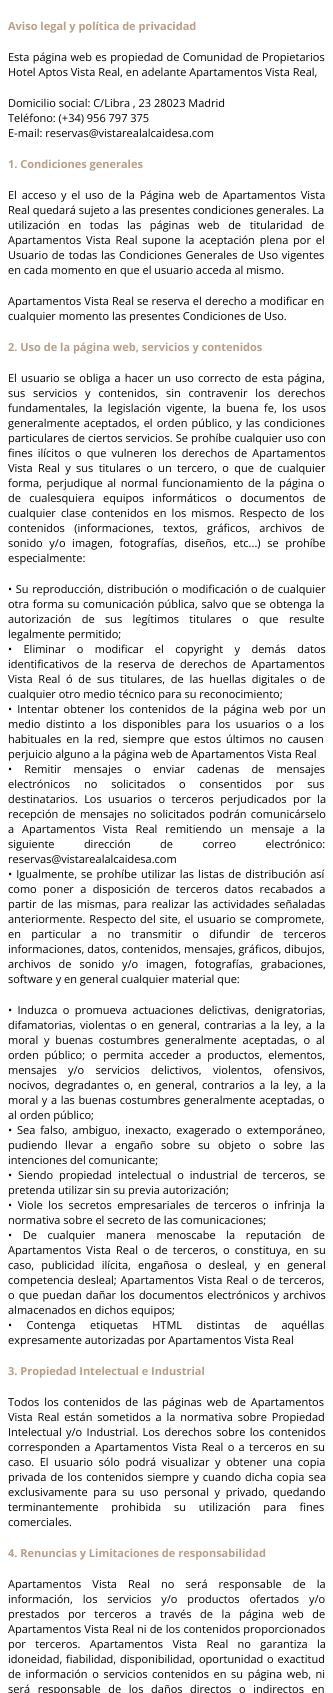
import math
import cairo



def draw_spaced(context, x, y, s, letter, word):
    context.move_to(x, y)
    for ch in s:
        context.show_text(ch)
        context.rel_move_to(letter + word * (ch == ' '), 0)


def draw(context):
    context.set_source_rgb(1, 1, 1)
    context.paint()
    context.select_font_face("Open Sans", cairo.FontSlant.NORMAL, cairo.FontWeight.BOLD)
    context.set_font_size(11)
    context.set_source_rgb(185 / 255, 158 / 255, 135 / 255)
    context.move_to(8, 30)
    context.show_text("Aviso legal y política de privacidad")
    context.select_font_face("Open Sans")
    context.set_source_rgb(0, 0, 0)
    draw_spaced(context, 8, 61, "Esta página web es propiedad de Comunidad de Propietarios", 0, 0.5)
    context.move_to(8, 76)
    context.show_text("Hotel Aptos Vista Real, en adelante Apartamentos Vista Real,")
    context.move_to(8, 107)
    context.show_text("Domicilio social: C/Libra , 23 28023 Madrid")
    context.move_to(8, 122)
    context.show_text("Teléfono: (+34) 956 797 375")
    context.move_to(8, 137)
    context.show_text("E-mail: reservas@vistarealalcaidesa.com")
    context.select_font_face("Open Sans", cairo.FontSlant.NORMAL, cairo.FontWeight.BOLD)
    context.set_source_rgb(185 / 255, 158 / 255, 135 / 255)
    context.move_to(8, 168)
    context.show_text("1. Condiciones generales")
    context.select_font_face("Open Sans")
    context.set_source_rgb(0, 0, 0)
    draw_spaced(context, 8, 199, "El acceso y el uso de la Página web de Apartamentos Vista", 0, 1.9)
    context.move_to(8, 214)
    context.show_text("Real quedará sujeto a las presentes condiciones generales. La")
    draw_spaced(context, 8, 229, "utilización en todas las páginas web de titularidad de", 0, 5.75)
    draw_spaced(context, 8, 244, "Apartamentos Vista Real supone la aceptación plena por el", 0, 2)
    draw_spaced(context, 8, 259, "Usuario de todas las Condiciones Generales de Uso vigentes", 0, 1)
    context.move_to(8, 274)
    context.show_text("en cada momento en que el usuario acceda al mismo.")
    draw_spaced(context, 8, 305, "Apartamentos Vista Real se reserva el derecho a modificar en", 0, 0.25)
    context.move_to(8, 320)
    context.show_text("cualquier momento las presentes Condiciones de Uso.")
    context.select_font_face("Open Sans", cairo.FontSlant.NORMAL, cairo.FontWeight.BOLD)
    context.set_source_rgb(185 / 255, 158 / 255, 135 / 255)
    context.move_to(8, 351)
    context.show_text("2. Uso de la página web, servicios y contenidos")
    context.select_font_face("Open Sans")
    context.set_source_rgb(0, 0, 0)
    draw_spaced(context, 8, 382, "El usuario se obliga a hacer un uso correcto de esta página,", 0, 1.25)
    draw_spaced(context, 8, 397, "sus servicios y contenidos, sin contravenir los derechos", 0, 5)
    draw_spaced(context, 8, 412, "fundamentales, la legislación vigente, la buena fe, los usos", 0, 2.5)
    draw_spaced(context, 8, 427, "generalmente aceptados, el orden público, y las condiciones", 0, 1.25)
    draw_spaced(context, 8, 442, "particulares de ciertos servicios. Se prohíbe cualquier uso con", 0, 0.25)
    draw_spaced(context, 8, 457, "fines ilícitos o que vulneren los derechos de Apartamentos", 0, 2.25)
    draw_spaced(context, 8, 472, "Vista Real y sus titulares o un tercero, o que de cualquier", 0, 2.5)
    draw_spaced(context, 8, 487, "forma, perjudique al normal funcionamiento de la página o", 0, 1.75)
    draw_spaced(context, 8, 502, "de cualesquiera equipos informáticos o documentos de", 0, 5.5)
    draw_spaced(context, 8, 517, "cualquier clase contenidos en los mismos. Respecto de los", 0, 2.25)
    draw_spaced(context, 8, 532, "contenidos (informaciones, textos, gráficos, archivos de", 0, 6.5)
    draw_spaced(context, 8, 547, "sonido y/o imagen, fotografías, diseños, etc...) se prohíbe", 0, 3.75)
    context.move_to(8, 562)
    context.show_text("especialmente:")
    draw_spaced(context, 8, 593, "• Su reproducción, distribución o modificación o de cualquier", 0, 0.75)
    draw_spaced(context, 8, 608, "otra forma su comunicación pública, salvo que se obtenga la", 0, 0.75)
    draw_spaced(context, 8, 623, "autorización de sus legítimos titulares o que resulte", 0, 7.5)
    context.move_to(8, 638)
    context.show_text("legalmente permitido;")
    draw_spaced(context, 8, 653, "• Eliminar o modificar el copyright y demás datos", 0, 8.5)
    draw_spaced(context, 8, 668, "identificativos de la reserva de derechos de Apartamentos", 0, 2.75)
    draw_spaced(context, 8, 683, "Vista Real ó de sus titulares, de las huellas digitales o de", 0, 2.9)
    context.move_to(8, 698)
    context.show_text("cualquier otro medio técnico para su reconocimiento;")
    draw_spaced(context, 8, 713, "• Intentar obtener los contenidos de la página web por un", 0, 2.25)
    draw_spaced(context, 8, 728, "medio distinto a los disponibles para los usuarios o a los", 0, 2.75)
    draw_spaced(context, 8, 743, "habituales en la red, siempre que estos últimos no causen", 0, 2)
    context.move_to(8, 758)
    context.show_text("perjuicio alguno a la página web de Apartamentos Vista Real")
    draw_spaced(context, 8, 773, "• Remitir mensajes o enviar cadenas de mensajes", 0, 9.25)
    draw_spaced(context, 8, 788, "electrónicos no solicitados o consentidos por sus", 0, 11)
    draw_spaced(context, 8, 803, "destinatarios. Los usuarios o terceros perjudicados por la", 0, 3.5)
    draw_spaced(context, 8, 818, "recepción de mensajes no solicitados podrán comunicárselo", 0, 1.5)
    draw_spaced(context, 8, 833, "a Apartamentos Vista Real remitiendo un mensaje a la", 0, 5)
    draw_spaced(context, 8, 848, "siguiente dirección de correo electrónico:", 0, 26.5)
    context.move_to(8, 863)
    context.show_text("reservas@vistarealalcaidesa.com")
    draw_spaced(context, 8, 878, "• Igualmente, se prohíbe utilizar las listas de distribución así", 0, 1.25)
    draw_spaced(context, 8, 893, "como poner a disposición de terceros datos recabados a", 0, 3.5)
    draw_spaced(context, 8, 908, "partir de las mismas, para realizar las actividades señaladas", 0, 1.5)
    draw_spaced(context, 8, 923, "anteriormente. Respecto del site, el usuario se compromete,", 0, 1)
    draw_spaced(context, 8, 938, "en particular a no transmitir o difundir de terceros", 0, 7.5)
    context.move_to(8, 953)
    context.show_text("informaciones, datos, contenidos, mensajes, gráficos, dibujos,")
    draw_spaced(context, 8, 968, "archivos de sonido y/o imagen, fotografías, grabaciones,", 0, 5)
    context.move_to(8, 983)
    context.show_text("software y en general cualquier material que:")
    draw_spaced(context, 8, 1014, "• Induzca o promueva actuaciones delictivas, denigratorias,", 0, 2.5)
    draw_spaced(context, 8, 1029, "difamatorias, violentas o en general, contrarias a la ley, a la", 0, 1.5)
    draw_spaced(context, 8, 1044, "moral y buenas costumbres generalmente aceptadas, o al", 0, 2.9)
    draw_spaced(context, 8, 1059, "orden público; o permita acceder a productos, elementos,", 0, 2.9)
    draw_spaced(context, 8, 1074, "mensajes y/o servicios delictivos, violentos, ofensivos,", 0, 8.5)
    draw_spaced(context, 8, 1089, "nocivos, degradantes o, en general, contrarios a la ley, a la", 0, 2)
    draw_spaced(context, 8, 1104, "moral y a las buenas costumbres generalmente aceptadas, o", 0, 0.75)
    context.move_to(8, 1119)
    context.show_text("al orden público;")
    draw_spaced(context, 8, 1134, "• Sea falso, ambiguo, inexacto, exagerado o extemporáneo,", 0, 2)
    draw_spaced(context, 8, 1149, "pudiendo llevar a engaño sobre su objeto o sobre las", 0, 5)
    context.move_to(8, 1164)
    context.show_text("intenciones del comunicante;")
    draw_spaced(context, 8, 1179, "• Siendo propiedad intelectual o industrial de terceros, se", 0, 3)
    context.move_to(8, 1194)
    context.show_text("pretenda utilizar sin su previa autorización;")
    draw_spaced(context, 8, 1209, "• Viole los secretos empresariales de terceros o infrinja la", 0, 2.75)
    context.move_to(8, 1224)
    context.show_text("normativa sobre el secreto de las comunicaciones;")
    draw_spaced(context, 8, 1239, "• De cualquier manera menoscabe la reputación de", 0, 7.75)
    draw_spaced(context, 8, 1254, "Apartamentos Vista Real o de terceros, o constituya, en su", 0, 2.25)
    draw_spaced(context, 8, 1269, "caso, publicidad ilícita, engañosa o desleal, y en general", 0, 4.25)
    draw_spaced(context, 8, 1284, "competencia desleal; Apartamentos Vista Real o de terceros,", 0, 1)
    draw_spaced(context, 8, 1299, "o que puedan dañar los documentos electrónicos y archivos", 0, 1.25)
    context.move_to(8, 1314)
    context.show_text("almacenados en dichos equipos;")
    draw_spaced(context, 8, 1329, "• Contenga etiquetas HTML distintas de aquéllas", 0, 11.5)
    context.move_to(8, 1344)
    context.show_text("expresamente autorizadas por Apartamentos Vista Real")
    context.select_font_face("Open Sans", cairo.FontSlant.NORMAL, cairo.FontWeight.BOLD)
    context.set_source_rgb(185 / 255, 158 / 255, 135 / 255)
    context.move_to(8, 1375)
    context.show_text("3. Propiedad Intelectual e Industrial")
    context.select_font_face("Open Sans")
    context.set_source_rgb(0, 0, 0)
    draw_spaced(context, 8, 1406, "Todos los contenidos de las páginas web de Apartamentos", 0, 2)
    draw_spaced(context, 8, 1421, "Vista Real están sometidos a la normativa sobre Propiedad", 0, 2)
    draw_spaced(context, 8, 1436, "Intelectual y/o Industrial. Los derechos sobre los contenidos", 0, 1.5)
    draw_spaced(context, 8, 1451, "corresponden a Apartamentos Vista Real o a terceros en su", 0, 1.5)
    draw_spaced(context, 8, 1466, "caso. El usuario sólo podrá visualizar y obtener una copia", 0, 2.75)
    draw_spaced(context, 8, 1481, "privada de los contenidos siempre y cuando dicha copia sea", 0, 1.25)
    draw_spaced(context, 8, 1496, "exclusivamente para su uso personal y privado, quedando", 0, 2.75)
    draw_spaced(context, 8, 1511, "terminantemente prohibida su utilización para fines", 0, 10)
    context.move_to(8, 1526)
    context.show_text("comerciales.")
    context.select_font_face("Open Sans", cairo.FontSlant.NORMAL, cairo.FontWeight.BOLD)
    context.set_source_rgb(185 / 255, 158 / 255, 135 / 255)
    context.move_to(8, 1557)
    context.show_text("4. Renuncias y Limitaciones de responsabilidad")
    context.select_font_face("Open Sans")
    context.set_source_rgb(0, 0, 0)
    draw_spaced(context, 8, 1588, "Apartamentos Vista Real no será responsable de la", 0, 8.25)
    draw_spaced(context, 8, 1603, "información, los servicios y/o productos ofertados y/o", 0, 7)
    draw_spaced(context, 8, 1618, "prestados por terceros a través de la página web de", 0, 5.75)
    draw_spaced(context, 8, 1633, "Apartamentos Vista Real ni de los contenidos proporcionados", 0, 0.25)
    draw_spaced(context, 8, 1648, "por terceros. Apartamentos Vista Real no garantiza la", 0, 6.5)
    draw_spaced(context, 8, 1663, "idoneidad, fiabilidad, disponibilidad, oportunidad o exactitud", 0, 1)
    draw_spaced(context, 8, 1678, "de información o servicios contenidos en su página web, ni", 0, 1.75)
    draw_spaced(context, 8, 1693, "será responsable de los daños directos o indirectos en", 0, 4.75)


surface = cairo.ImageSurface(cairo.Format.RGB24, 333, 1693)
context = cairo.Context(surface)
options = cairo.FontOptions()
options.set_hint_metrics(cairo.HintMetrics.OFF)
options.set_hint_style(cairo.HintStyle.NONE)
context.set_font_options(options)
context.set_miter_limit(4)
draw(context)
surface.write_to_png("out.png")
